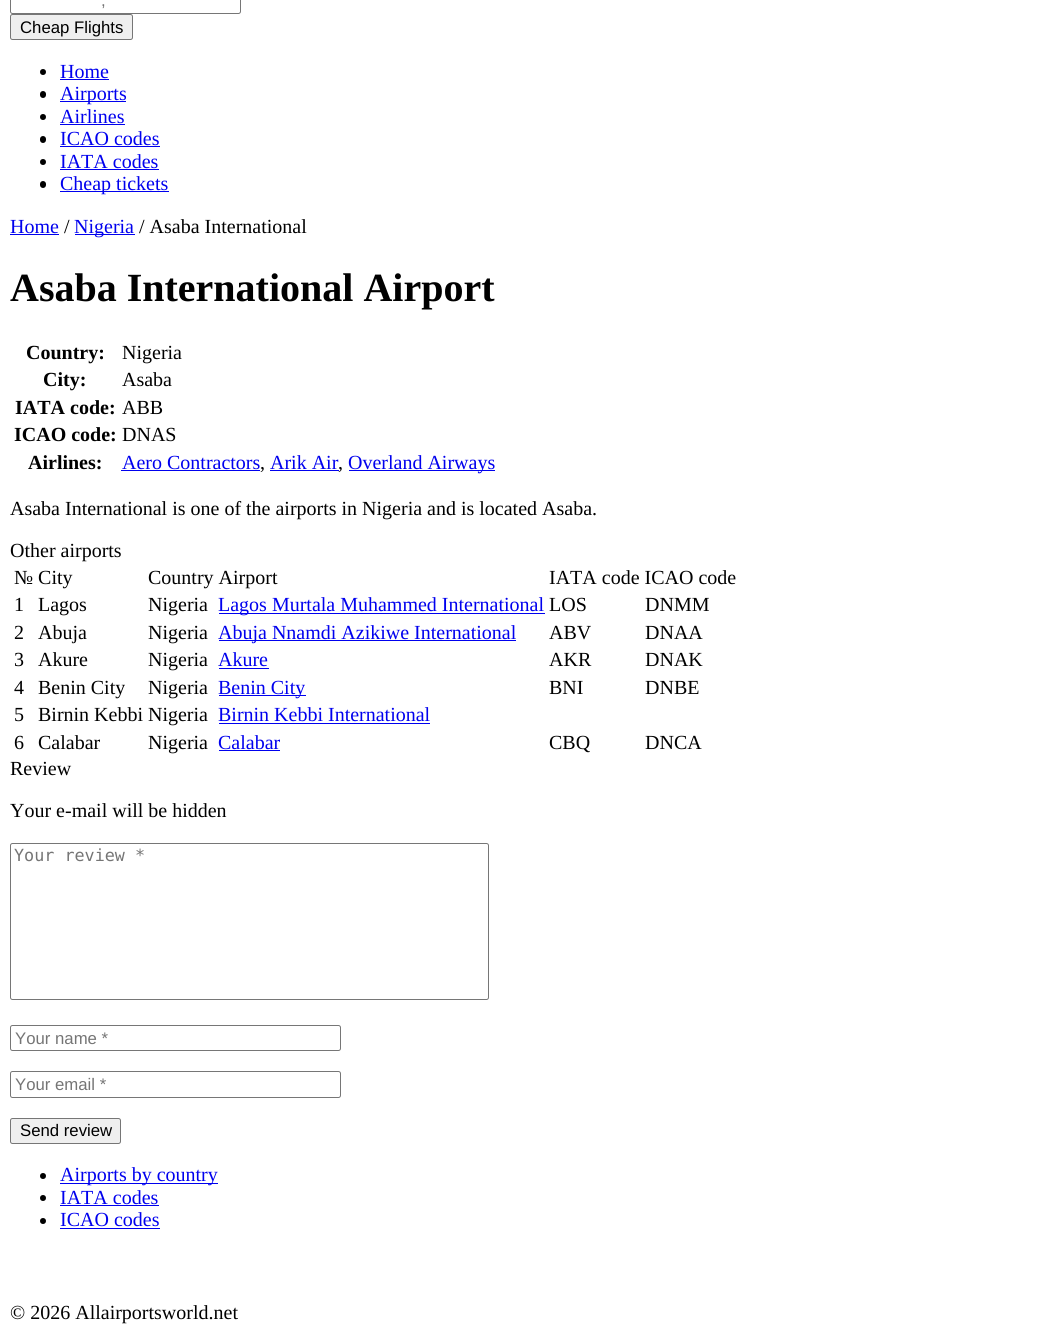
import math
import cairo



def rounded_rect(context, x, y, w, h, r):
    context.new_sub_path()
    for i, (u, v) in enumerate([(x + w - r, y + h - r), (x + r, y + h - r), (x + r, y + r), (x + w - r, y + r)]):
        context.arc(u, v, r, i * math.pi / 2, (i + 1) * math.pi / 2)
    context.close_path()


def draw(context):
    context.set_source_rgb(1, 1, 1)
    context.paint()
    rounded_rect(context, 10.5, -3.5, 230, 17, 2)
    context.set_source_rgb(118 / 255, 118 / 255, 118 / 255)
    context.set_line_width(1)
    context.stroke()
    context.set_source_rgb(239 / 255, 239 / 255, 239 / 255)
    rounded_rect(context, 10.5, 14.5, 122, 25, 2)
    context.fill_preserve()
    context.set_source_rgb(118 / 255, 118 / 255, 118 / 255)
    context.stroke()
    context.set_source_rgb(0, 0, 0)
    context.arc(43, 72, 3, 0, 2 * math.pi)
    context.fill()
    context.set_source_rgb(0, 0, 238 / 255)
    context.rectangle(60, 79, 49, 1)
    context.fill()
    context.set_source_rgb(0, 0, 0)
    rounded_rect(context, 40, 91, 6, 7, 3)
    context.fill()
    context.set_source_rgb(0, 0, 238 / 255)
    context.rectangle(60, 101, 66, 1)
    context.fill()
    context.set_source_rgb(0, 0, 0)
    context.arc(43, 117, 3, 0, 2 * math.pi)
    context.fill()
    context.set_source_rgb(0, 0, 238 / 255)
    context.rectangle(60, 124, 65, 1)
    context.fill()
    context.set_source_rgb(0, 0, 0)
    rounded_rect(context, 40, 136, 6, 7, 3)
    context.fill()
    context.set_source_rgb(0, 0, 238 / 255)
    context.rectangle(60, 146, 100, 1)
    context.fill()
    context.set_source_rgb(0, 0, 0)
    context.arc(43, 162, 3, 0, 2 * math.pi)
    context.fill()
    context.set_source_rgb(0, 0, 238 / 255)
    context.rectangle(60, 169, 99, 1)
    context.fill()
    context.set_source_rgb(0, 0, 0)
    rounded_rect(context, 40, 181, 6, 7, 3)
    context.fill()
    context.set_source_rgb(0, 0, 238 / 255)
    context.rectangle(60, 191, 109, 1)
    context.fill()
    context.rectangle(10, 234, 49, 1)
    context.fill()
    context.rectangle(75, 234, 60, 1)
    context.fill()
    context.rectangle(121, 470, 139, 1)
    context.fill()
    context.rectangle(270, 470, 69, 1)
    context.fill()
    context.rectangle(349, 470, 146, 1)
    context.fill()
    context.rectangle(219, 613, 326, 1)
    context.fill()
    context.rectangle(219, 640, 297, 1)
    context.fill()
    context.rectangle(219, 668, 50, 1)
    context.fill()
    context.rectangle(219, 695, 87, 1)
    context.fill()
    context.rectangle(219, 723, 211, 1)
    context.fill()
    context.rectangle(219, 750, 61, 1)
    context.fill()
    rounded_rect(context, 10.5, 843.5, 478, 156, 2)
    context.set_source_rgb(118 / 255, 118 / 255, 118 / 255)
    context.stroke()
    rounded_rect(context, 10.5, 1025.5, 330, 25, 2)
    context.stroke()
    rounded_rect(context, 10.5, 1071.5, 330, 26, 2)
    context.stroke()
    context.set_source_rgb(239 / 255, 239 / 255, 239 / 255)
    rounded_rect(context, 10.5, 1118.5, 110, 25, 2)
    context.fill_preserve()
    context.set_source_rgb(118 / 255, 118 / 255, 118 / 255)
    context.stroke()
    context.set_source_rgb(0, 0, 0)
    context.arc(43, 1176, 3, 0, 2 * math.pi)
    context.fill()
    context.set_source_rgb(0, 0, 238 / 255)
    context.rectangle(60, 1183, 158, 1)
    context.fill()
    context.set_source_rgb(0, 0, 0)
    context.arc(43, 1198, 3, 0, 2 * math.pi)
    context.fill()
    context.set_source_rgb(0, 0, 238 / 255)
    context.rectangle(60, 1205, 99, 1)
    context.fill()
    context.set_source_rgb(0, 0, 0)
    context.arc(43, 1221, 3, 0, 2 * math.pi)
    context.fill()
    context.set_source_rgb(0, 0, 238 / 255)
    context.rectangle(60, 1228, 100, 1)
    context.fill()
    context.select_font_face("Liberation Sans")
    context.set_font_size(16.75)
    context.set_source_rgb(117 / 255, 117 / 255, 117 / 255)
    context.move_to(101, 6)
    context.show_text(",")
    context.set_source_rgb(0, 0, 0)
    context.move_to(20, 33)
    context.show_text("Cheap Flights")
    context.select_font_face("Liberation Serif")
    context.set_font_size(20)
    context.set_source_rgb(0, 0, 238 / 255)
    context.move_to(60, 78)
    context.show_text("Home")
    context.move_to(60, 100)
    context.show_text("Airports")
    context.move_to(60, 123)
    context.show_text("Airlines")
    context.move_to(60, 145)
    context.show_text("ICAO codes")
    context.move_to(60, 168)
    context.show_text("IATA codes")
    context.move_to(60, 190)
    context.show_text("Cheap tickets")
    context.move_to(10, 233)
    context.show_text("Home")
    context.set_source_rgb(0, 0, 0)
    context.move_to(64, 233)
    context.show_text("/")
    context.set_source_rgb(0, 0, 238 / 255)
    context.move_to(74, 233)
    context.show_text("Nigeria")
    context.set_source_rgb(0, 0, 0)
    context.move_to(139, 233)
    context.show_text("/ Asaba International")
    context.select_font_face("Liberation Serif", cairo.FontSlant.NORMAL, cairo.FontWeight.BOLD)
    context.set_font_size(40)
    context.move_to(10, 301)
    context.show_text("Asaba International Airport")
    context.set_font_size(20)
    context.move_to(26, 359)
    context.show_text("Country:")
    context.select_font_face("Liberation Serif")
    context.move_to(122, 359)
    context.show_text("Nigeria")
    context.select_font_face("Liberation Serif", cairo.FontSlant.NORMAL, cairo.FontWeight.BOLD)
    context.move_to(43, 386)
    context.show_text("City:")
    context.select_font_face("Liberation Serif")
    context.move_to(122, 386)
    context.show_text("Asaba")
    context.select_font_face("Liberation Serif", cairo.FontSlant.NORMAL, cairo.FontWeight.BOLD)
    context.move_to(15, 414)
    context.show_text("IATA code:")
    context.select_font_face("Liberation Serif")
    context.move_to(122, 414)
    context.show_text("ABB")
    context.select_font_face("Liberation Serif", cairo.FontSlant.NORMAL, cairo.FontWeight.BOLD)
    context.move_to(14, 441)
    context.show_text("ICAO code:")
    context.select_font_face("Liberation Serif")
    context.move_to(122, 441)
    context.show_text("DNAS")
    context.select_font_face("Liberation Serif", cairo.FontSlant.NORMAL, cairo.FontWeight.BOLD)
    context.move_to(28, 469)
    context.show_text("Airlines:")
    context.select_font_face("Liberation Serif")
    context.set_source_rgb(0, 0, 238 / 255)
    context.move_to(122, 469)
    context.show_text("Aero Contractors")
    context.set_source_rgb(0, 0, 0)
    context.move_to(260, 469)
    context.show_text(",")
    context.set_source_rgb(0, 0, 238 / 255)
    context.move_to(270, 469)
    context.show_text("Arik Air")
    context.set_source_rgb(0, 0, 0)
    context.move_to(338, 469)
    context.show_text(",")
    context.set_source_rgb(0, 0, 238 / 255)
    context.move_to(348, 469)
    context.show_text("Overland Airways")
    context.set_source_rgb(0, 0, 0)
    context.move_to(10, 515)
    context.show_text("Asaba International is one of the airports in Nigeria and is located Asaba.")
    context.move_to(10, 557)
    context.show_text("Other airports")
    context.move_to(14, 584)
    context.show_text("№ City")
    context.move_to(148, 584)
    context.show_text("Country Airport")
    context.move_to(549, 584)
    context.show_text("IATA code ICAO code")
    context.move_to(14, 611)
    context.show_text("1")
    context.move_to(38, 611)
    context.show_text("Lagos")
    context.move_to(148, 611)
    context.show_text("Nigeria")
    context.set_source_rgb(0, 0, 238 / 255)
    context.move_to(218, 611)
    context.show_text("Lagos Murtala Muhammed International")
    context.set_source_rgb(0, 0, 0)
    context.move_to(549, 611)
    context.show_text("LOS")
    context.move_to(645, 611)
    context.show_text("DNMM")
    context.move_to(14, 639)
    context.show_text("2")
    context.move_to(38, 639)
    context.show_text("Abuja")
    context.move_to(148, 639)
    context.show_text("Nigeria")
    context.set_source_rgb(0, 0, 238 / 255)
    context.move_to(218, 639)
    context.show_text("Abuja Nnamdi Azikiwe International")
    context.set_source_rgb(0, 0, 0)
    context.move_to(549, 639)
    context.show_text("ABV")
    context.move_to(645, 639)
    context.show_text("DNAA")
    context.move_to(14, 666)
    context.show_text("3")
    context.move_to(38, 666)
    context.show_text("Akure")
    context.move_to(148, 666)
    context.show_text("Nigeria")
    context.set_source_rgb(0, 0, 238 / 255)
    context.move_to(218, 666)
    context.show_text("Akure")
    context.set_source_rgb(0, 0, 0)
    context.move_to(549, 666)
    context.show_text("AKR")
    context.move_to(645, 666)
    context.show_text("DNAK")
    context.move_to(14, 694)
    context.show_text("4")
    context.move_to(38, 694)
    context.show_text("Benin City")
    context.move_to(148, 694)
    context.show_text("Nigeria")
    context.set_source_rgb(0, 0, 238 / 255)
    context.move_to(218, 694)
    context.show_text("Benin City")
    context.set_source_rgb(0, 0, 0)
    context.move_to(549, 694)
    context.show_text("BNI")
    context.move_to(645, 694)
    context.show_text("DNBE")
    context.move_to(14, 721)
    context.show_text("5")
    context.move_to(38, 721)
    context.show_text("Birnin Kebbi Nigeria")
    context.set_source_rgb(0, 0, 238 / 255)
    context.move_to(218, 721)
    context.show_text("Birnin Kebbi International")
    context.set_source_rgb(0, 0, 0)
    context.move_to(14, 749)
    context.show_text("6")
    context.move_to(38, 749)
    context.show_text("Calabar")
    context.move_to(148, 749)
    context.show_text("Nigeria")
    context.set_source_rgb(0, 0, 238 / 255)
    context.move_to(218, 749)
    context.show_text("Calabar")
    context.set_source_rgb(0, 0, 0)
    context.move_to(549, 749)
    context.show_text("CBQ")
    context.move_to(645, 749)
    context.show_text("DNCA")
    context.move_to(10, 775)
    context.show_text("Review")
    context.move_to(10, 817)
    context.show_text("Your e-mail will be hidden")
    context.select_font_face("DejaVu Sans Mono")
    context.set_font_size(16.75)
    context.set_source_rgb(117 / 255, 117 / 255, 117 / 255)
    context.move_to(14, 861)
    context.show_text("Your review *")
    context.select_font_face("Liberation Sans")
    context.move_to(15, 1044)
    context.show_text("Your name *")
    context.move_to(15, 1090)
    context.show_text("Your email *")
    context.set_source_rgb(0, 0, 0)
    context.move_to(20, 1136)
    context.show_text("Send review")
    context.select_font_face("Liberation Serif")
    context.set_font_size(20)
    context.set_source_rgb(0, 0, 238 / 255)
    context.move_to(60, 1181)
    context.show_text("Airports by country")
    context.move_to(60, 1204)
    context.show_text("IATA codes")
    context.move_to(60, 1226)
    context.show_text("ICAO codes")
    context.set_source_rgb(0, 0, 0)
    context.move_to(10, 1319)
    context.show_text("© 2026 Allairportsworld.net")


surface = cairo.ImageSurface(cairo.Format.RGB24, 1064, 1337)
context = cairo.Context(surface)
options = cairo.FontOptions()
options.set_hint_metrics(cairo.HintMetrics.OFF)
options.set_hint_style(cairo.HintStyle.NONE)
context.set_font_options(options)
context.set_miter_limit(4)
draw(context)
surface.write_to_png("out.png")
